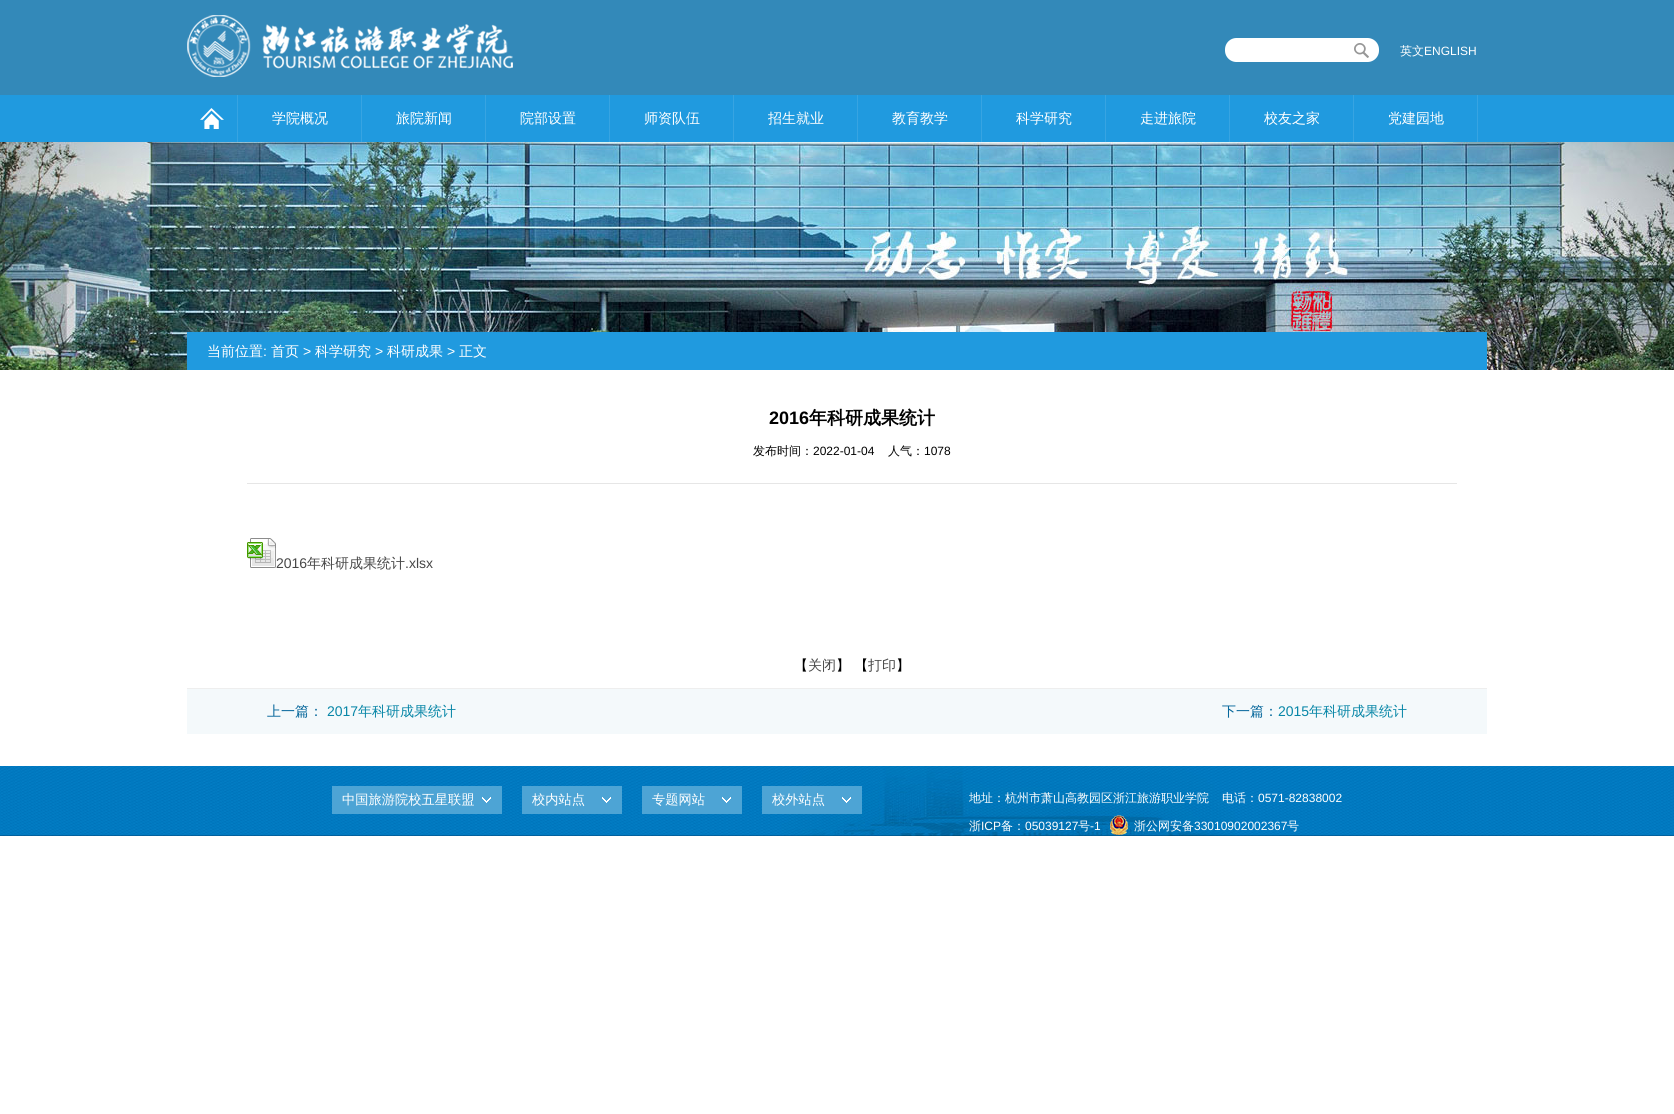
import math
import cairo



def draw_image(context, path, x, y, w, h):
    context.save()
    context.set_source_surface(cairo.ImageSurface.create_from_png(path), x, y)
    context.rectangle(x, y, w, h)
    context.fill()
    context.restore()


def draw(context):
    context.set_source_rgb(1, 1, 1)
    context.paint()
    context.set_source_rgb(51 / 255, 137 / 255, 185 / 255)
    context.rectangle(0, 0, 1674, 95)
    context.fill()
    draw_image(context, "images/1.png", 187, 15, 326, 62)
    draw_image(context, "images/2.png", 1225, 38, 125, 24)
    draw_image(context, "images/3.png", 1350, 38, 29, 24)
    context.set_source_rgb(32 / 255, 154 / 255, 223 / 255)
    context.rectangle(0, 95, 1674, 47)
    context.fill()
    context.set_source_rgb(55 / 255, 164 / 255, 226 / 255)
    context.rectangle(237, 95, 1, 47)
    context.fill()
    draw_image(context, "images/4.png", 200, 108, 24, 21)
    context.rectangle(361, 95, 1, 47)
    context.fill()
    context.rectangle(485, 95, 1, 47)
    context.fill()
    context.rectangle(609, 95, 1, 47)
    context.fill()
    context.rectangle(733, 95, 1, 47)
    context.fill()
    context.rectangle(857, 95, 1, 47)
    context.fill()
    context.rectangle(981, 95, 1, 47)
    context.fill()
    context.rectangle(1105, 95, 1, 47)
    context.fill()
    context.rectangle(1229, 95, 1, 47)
    context.fill()
    context.rectangle(1353, 95, 1, 47)
    context.fill()
    context.rectangle(1477, 95, 1, 47)
    context.fill()
    draw_image(context, "images/5.png", 0, 142, 1674, 228)
    context.set_source_rgb(32 / 255, 154 / 255, 223 / 255)
    context.rectangle(187, 332, 1300, 38)
    context.fill()
    context.set_source_rgb(230 / 255, 230 / 255, 230 / 255)
    context.rectangle(247, 483, 1210, 1)
    context.fill()
    draw_image(context, "images/6.png", 247, 538, 29, 30)
    context.set_source_rgb(244 / 255, 249 / 255, 251 / 255)
    context.rectangle(187, 689, 1300, 45)
    context.fill()
    context.set_source_rgb(238 / 255, 238 / 255, 238 / 255)
    context.rectangle(187, 688, 1300, 1)
    context.fill()
    draw_image(context, "images/7.png", 0, 766, 1674, 70)
    context.set_source_rgb(77 / 255, 164 / 255, 213 / 255)
    context.rectangle(332, 786, 170, 28)
    context.fill()
    draw_image(context, "images/8.png", 482, 797, 9, 6)
    context.rectangle(522, 786, 100, 28)
    context.fill()
    draw_image(context, "images/8.png", 602, 797, 9, 6)
    context.rectangle(642, 786, 100, 28)
    context.fill()
    draw_image(context, "images/8.png", 722, 797, 9, 6)
    context.rectangle(762, 786, 100, 28)
    context.fill()
    draw_image(context, "images/8.png", 842, 797, 9, 6)
    draw_image(context, "images/9.png", 1110, 815, 18, 20)
    context.select_font_face("WenQuanYi Zen Hei Medium")
    context.set_font_size(12)
    context.set_source_rgb(1, 1, 1)
    context.move_to(1400, 55)
    context.show_text("英文")
    context.select_font_face("Liberation Sans")
    context.move_to(1424, 55)
    context.show_text("ENGLISH")
    context.select_font_face("WenQuanYi Zen Hei Medium")
    context.set_font_size(14)
    context.move_to(272, 123)
    context.show_text("学院概况")
    context.move_to(396, 123)
    context.show_text("旅院新闻")
    context.move_to(520, 123)
    context.show_text("院部设置")
    context.move_to(644, 123)
    context.show_text("师资队伍")
    context.move_to(768, 123)
    context.show_text("招生就业")
    context.move_to(892, 123)
    context.show_text("教育教学")
    context.move_to(1016, 123)
    context.show_text("科学研究")
    context.move_to(1140, 123)
    context.show_text("走进旅院")
    context.move_to(1264, 123)
    context.show_text("校友之家")
    context.move_to(1388, 123)
    context.show_text("党建园地")
    context.move_to(207, 356)
    context.show_text("当前位置")
    context.select_font_face("Liberation Sans")
    context.move_to(263, 356)
    context.show_text(":")
    context.select_font_face("WenQuanYi Zen Hei Medium")
    context.move_to(271, 356)
    context.show_text("首页")
    context.select_font_face("Liberation Sans")
    context.move_to(303, 356)
    context.show_text(">")
    context.select_font_face("WenQuanYi Zen Hei Medium")
    context.move_to(315, 356)
    context.show_text("科学研究")
    context.select_font_face("Liberation Sans")
    context.move_to(375, 356)
    context.show_text(">")
    context.select_font_face("WenQuanYi Zen Hei Medium")
    context.move_to(387, 356)
    context.show_text("科研成果")
    context.select_font_face("Liberation Sans")
    context.move_to(447, 356)
    context.show_text(">")
    context.select_font_face("WenQuanYi Zen Hei Medium")
    context.move_to(459, 356)
    context.show_text("正文")
    context.select_font_face("Liberation Sans", cairo.FontSlant.NORMAL, cairo.FontWeight.BOLD)
    context.set_font_size(18)
    context.set_source_rgb(0, 0, 0)
    context.move_to(769, 424)
    context.show_text("2016")
    context.select_font_face("WenQuanYi Zen Hei", cairo.FontSlant.NORMAL, cairo.FontWeight.BOLD)
    context.move_to(809, 424)
    context.show_text("年科研成果统计")
    context.select_font_face("WenQuanYi Zen Hei Medium")
    context.set_font_size(12)
    context.move_to(753, 455)
    context.show_text("发布时间：")
    context.select_font_face("Liberation Sans")
    context.move_to(813, 455)
    context.show_text("2022-01-04")
    context.select_font_face("WenQuanYi Zen Hei Medium")
    context.move_to(888, 455)
    context.show_text("人气：")
    context.select_font_face("Liberation Sans")
    context.move_to(924, 455)
    context.show_text("1078")
    context.set_font_size(14)
    context.set_source_rgb(71 / 255, 71 / 255, 71 / 255)
    context.move_to(276, 568)
    context.show_text("2016")
    context.select_font_face("WenQuanYi Zen Hei Medium")
    context.move_to(307, 568)
    context.show_text("年科研成果统计")
    context.select_font_face("Liberation Sans")
    context.move_to(405, 568)
    context.show_text(".xlsx")
    context.select_font_face("WenQuanYi Zen Hei Medium")
    context.set_source_rgb(0, 0, 0)
    context.move_to(794, 670)
    context.show_text("【")
    context.set_source_rgb(71 / 255, 71 / 255, 71 / 255)
    context.move_to(808, 670)
    context.show_text("关闭")
    context.set_source_rgb(0, 0, 0)
    context.move_to(836, 670)
    context.show_text("】 【")
    context.set_source_rgb(71 / 255, 71 / 255, 71 / 255)
    context.move_to(868, 670)
    context.show_text("打印")
    context.set_source_rgb(0, 0, 0)
    context.move_to(896, 670)
    context.show_text("】")
    context.set_source_rgb(6 / 255, 103 / 255, 155 / 255)
    context.move_to(267, 716)
    context.show_text("上一篇：")
    context.select_font_face("Liberation Sans")
    context.set_source_rgb(7 / 255, 134 / 255, 167 / 255)
    context.move_to(327, 716)
    context.show_text("2017")
    context.select_font_face("WenQuanYi Zen Hei Medium")
    context.move_to(358, 716)
    context.show_text("年科研成果统计")
    context.set_source_rgb(6 / 255, 103 / 255, 155 / 255)
    context.move_to(1222, 716)
    context.show_text("下一篇：")
    context.select_font_face("Liberation Sans")
    context.set_source_rgb(7 / 255, 134 / 255, 167 / 255)
    context.move_to(1278, 716)
    context.show_text("2015")
    context.select_font_face("WenQuanYi Zen Hei Medium")
    context.move_to(1309, 716)
    context.show_text("年科研成果统计")
    context.set_font_size(13.25)
    context.set_source_rgb(1, 1, 1)
    context.move_to(342, 804)
    context.show_text("中国旅游院校五星联盟")
    context.move_to(532, 804)
    context.show_text("校内站点")
    context.move_to(652, 804)
    context.show_text("专题网站")
    context.move_to(772, 804)
    context.show_text("校外站点")
    context.set_font_size(12)
    context.move_to(969, 802)
    context.show_text("地址：杭州市萧山高教园区浙江旅游职业学院")
    context.move_to(1222, 802)
    context.show_text("电话：")
    context.select_font_face("Liberation Sans")
    context.move_to(1258, 802)
    context.show_text("0571-82838002")
    context.select_font_face("WenQuanYi Zen Hei Medium")
    context.move_to(969, 830)
    context.show_text("浙")
    context.select_font_face("Liberation Sans")
    context.move_to(981, 830)
    context.show_text("ICP")
    context.select_font_face("WenQuanYi Zen Hei Medium")
    context.move_to(1001, 830)
    context.show_text("备：")
    context.select_font_face("Liberation Sans")
    context.move_to(1025, 830)
    context.show_text("05039127")
    context.select_font_face("WenQuanYi Zen Hei Medium")
    context.move_to(1078, 830)
    context.show_text("号")
    context.select_font_face("Liberation Sans")
    context.move_to(1090, 830)
    context.show_text("-1")
    context.select_font_face("WenQuanYi Zen Hei Medium")
    context.move_to(1134, 830)
    context.show_text("浙公网安备")
    context.select_font_face("Liberation Sans")
    context.move_to(1194, 830)
    context.show_text("33010902002367")
    context.select_font_face("WenQuanYi Zen Hei Medium")
    context.move_to(1287, 830)
    context.show_text("号")


surface = cairo.ImageSurface(cairo.Format.RGB24, 1674, 1114)
context = cairo.Context(surface)
options = cairo.FontOptions()
options.set_hint_metrics(cairo.HintMetrics.OFF)
options.set_hint_style(cairo.HintStyle.NONE)
context.set_font_options(options)
context.set_miter_limit(4)
draw(context)
surface.write_to_png("out.png")
